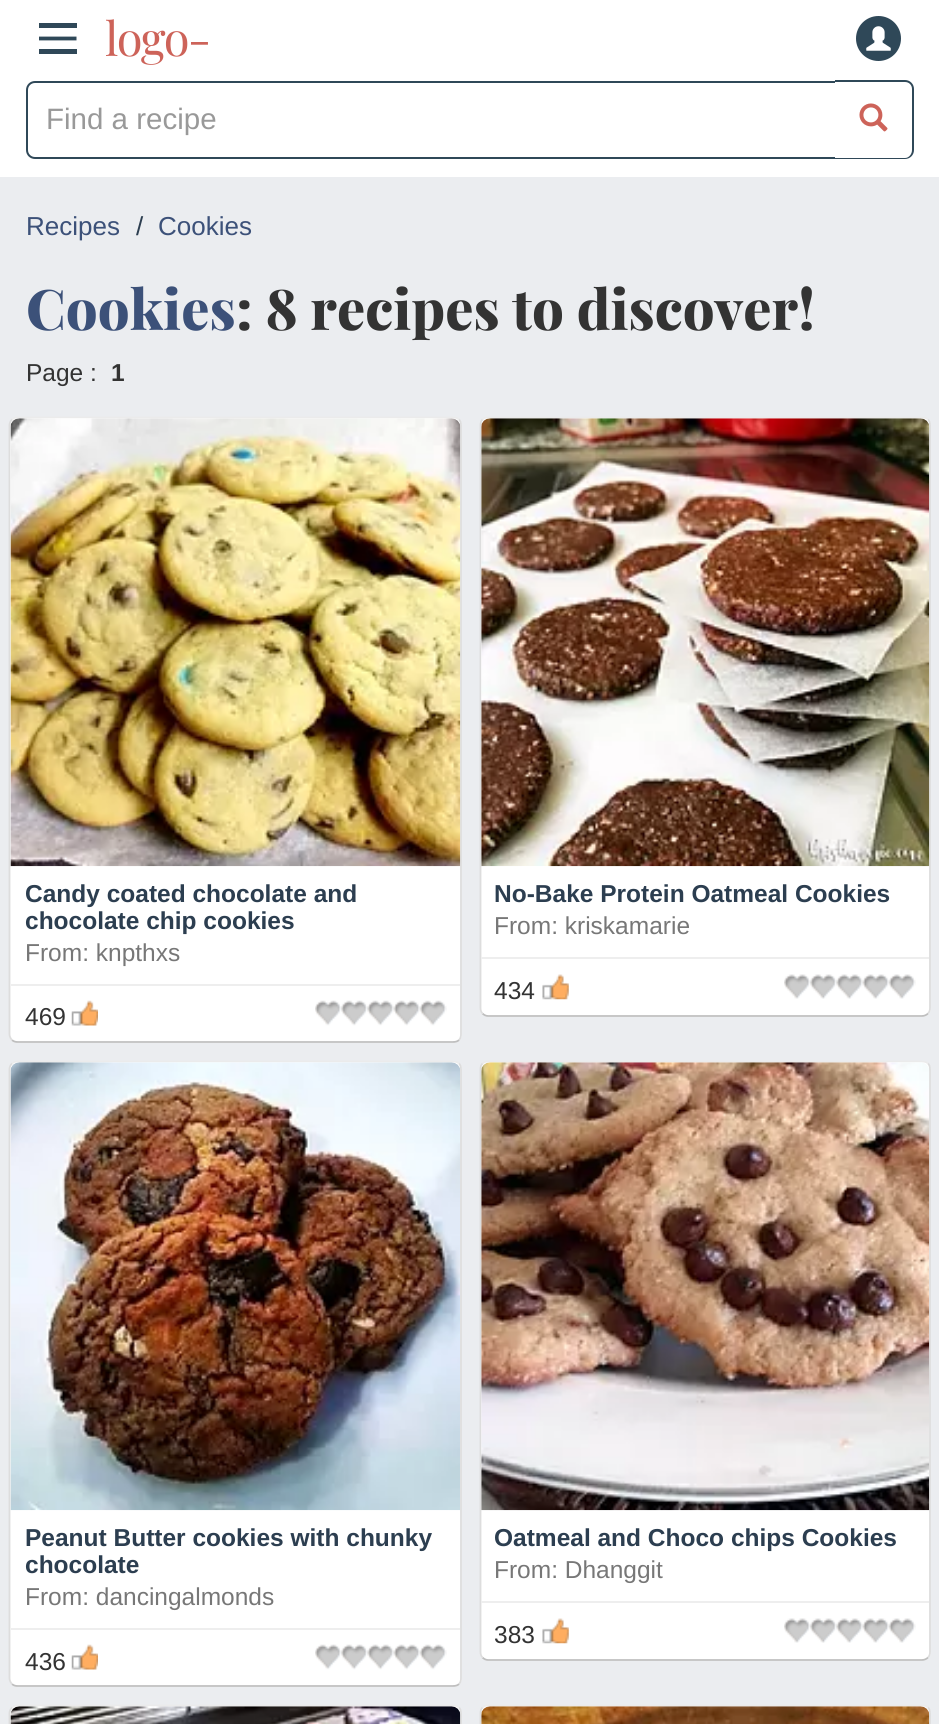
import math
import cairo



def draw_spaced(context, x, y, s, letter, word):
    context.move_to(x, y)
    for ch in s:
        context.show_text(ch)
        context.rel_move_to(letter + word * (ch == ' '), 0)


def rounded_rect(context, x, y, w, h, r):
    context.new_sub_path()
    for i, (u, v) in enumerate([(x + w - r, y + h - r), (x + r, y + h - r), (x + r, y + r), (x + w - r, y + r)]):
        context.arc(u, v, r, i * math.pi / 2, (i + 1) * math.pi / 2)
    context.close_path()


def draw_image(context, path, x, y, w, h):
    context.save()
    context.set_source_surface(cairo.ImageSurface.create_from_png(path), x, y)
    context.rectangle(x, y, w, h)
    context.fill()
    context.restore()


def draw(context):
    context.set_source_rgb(1, 1, 1)
    context.paint()
    context.set_source_rgb(47 / 255, 72 / 255, 88 / 255)
    context.rectangle(39, 23, 38, 5)
    context.fill()
    context.new_path()
    context.move_to(39, 38.5)
    context.line_to(76.5, 38.5)
    context.set_line_width(3.8)
    context.stroke()
    context.rectangle(39, 49, 38, 5)
    context.fill()
    context.arc(878.5, 38.5, 21.5, 0, 2 * math.pi)
    context.fill_preserve()
    context.set_line_width(2)
    context.stroke()
    draw_image(context, "images/1.png", 866, 26, 25, 25)
    context.new_path()
    context.move_to(35, 82)
    context.line_to(836, 82)
    context.line_to(836, 158)
    context.line_to(35, 158)
    context.curve_to(30.5, 158, 27, 154.5, 27, 150)
    context.line_to(27, 90)
    context.curve_to(27, 85.5, 30.5, 82, 35, 82)
    context.close_path()
    context.stroke()
    context.set_source_rgb(1, 1, 1)
    context.new_path()
    context.move_to(835, 81)
    context.line_to(905, 81)
    context.curve_to(910, 81, 914, 85, 914, 90)
    context.line_to(914, 150)
    context.curve_to(914, 155, 910, 159, 905, 159)
    context.line_to(835, 159)
    context.close_path()
    context.fill()
    context.set_source_rgb(47 / 255, 72 / 255, 88 / 255)
    context.set_fill_rule(cairo.FillRule.EVEN_ODD)
    context.new_path()
    context.move_to(835, 80)
    context.line_to(905, 80)
    context.curve_to(910, 80, 914, 84, 914, 89)
    context.line_to(914, 150)
    context.curve_to(914, 155, 910, 159, 905, 159)
    context.line_to(835, 159)
    context.close_path()
    context.move_to(835, 82)
    context.line_to(905, 82)
    context.curve_to(909, 82, 912, 85, 912, 89)
    context.line_to(912, 150)
    context.curve_to(912, 154, 909, 158, 905, 158)
    context.line_to(835, 158)
    context.close_path()
    context.fill()
    draw_image(context, "images/2.png", 859, 103, 29, 29)
    context.set_source_rgb(235 / 255, 237 / 255, 240 / 255)
    context.rectangle(0, 177, 939, 1547)
    context.fill()
    context.set_source_rgb(1, 1, 1)
    rounded_rect(context, 9, 417, 453, 626, 9)
    context.fill()
    context.new_path()
    context.move_to(12, 419.5)
    context.curve_to(13.5, 418, 15.5, 417.5, 17.5, 417.5)
    context.line_to(453, 417.5)
    context.curve_to(455.5, 417.5, 457.5, 418, 459, 419.5)
    context.set_source_rgb(235 / 255, 235 / 255, 235 / 255)
    context.set_line_width(1.8)
    context.stroke()
    context.new_path()
    context.move_to(459, 419.5)
    context.curve_to(460.5, 421, 461, 423, 461, 425)
    context.line_to(461, 1034)
    context.curve_to(461, 1036.5, 460.5, 1038.5, 459, 1040)
    context.set_source_rgb(221 / 255, 221 / 255, 221 / 255)
    context.stroke()
    context.new_path()
    context.move_to(459, 1040)
    context.curve_to(457.5, 1041.5, 455.5, 1042, 453, 1042)
    context.line_to(17.5, 1042)
    context.curve_to(15.5, 1042, 13.5, 1041.5, 12, 1040)
    context.set_source_rgb(190 / 255, 190 / 255, 190 / 255)
    context.stroke()
    context.new_path()
    context.move_to(12, 1040)
    context.curve_to(10.5, 1038.5, 9.5, 1036.5, 9.5, 1034)
    context.line_to(9.5, 425)
    context.curve_to(9.5, 423, 10.5, 421, 12, 419.5)
    context.set_source_rgb(221 / 255, 221 / 255, 221 / 255)
    context.stroke()
    draw_image(context, "images/3.png", 10, 418, 451, 449)
    context.set_source_rgb(238 / 255, 238 / 255, 238 / 255)
    context.rectangle(11, 984, 449, 2)
    context.fill()
    draw_image(context, "images/4.png", 71, 1000, 27, 26)
    draw_image(context, "images/5.png", 315, 1000, 132, 26)
    context.set_source_rgb(1, 1, 1)
    rounded_rect(context, 480, 417, 451, 600, 9)
    context.fill()
    context.new_path()
    context.move_to(482.5, 419.5)
    context.curve_to(484, 418, 486, 417.5, 488, 417.5)
    context.line_to(922, 417.5)
    context.curve_to(924.5, 417.5, 926.5, 418, 928, 419.5)
    context.set_source_rgb(235 / 255, 235 / 255, 235 / 255)
    context.stroke()
    context.new_path()
    context.move_to(928, 419.5)
    context.curve_to(929.5, 421, 930, 423, 930, 425)
    context.line_to(930, 1008)
    context.curve_to(930, 1010, 929.5, 1012, 928, 1013.5)
    context.set_source_rgb(221 / 255, 221 / 255, 221 / 255)
    context.stroke()
    context.new_path()
    context.move_to(928, 1013.5)
    context.curve_to(926.5, 1015, 924.5, 1016, 922, 1016)
    context.line_to(488, 1016)
    context.curve_to(486, 1016, 484, 1015, 482.5, 1013.5)
    context.set_source_rgb(190 / 255, 190 / 255, 190 / 255)
    context.stroke()
    context.new_path()
    context.move_to(482.5, 1013.5)
    context.curve_to(481, 1012, 480.5, 1010, 480.5, 1008)
    context.line_to(480.5, 425)
    context.curve_to(480.5, 423, 481, 421, 482.5, 419.5)
    context.set_source_rgb(221 / 255, 221 / 255, 221 / 255)
    context.stroke()
    draw_image(context, "images/6.png", 481, 418, 449, 449)
    context.set_source_rgb(238 / 255, 238 / 255, 238 / 255)
    context.rectangle(481, 957, 448, 2)
    context.fill()
    draw_image(context, "images/7.png", 542, 974, 27, 26)
    draw_image(context, "images/8.png", 784, 974, 132, 25)
    context.set_source_rgb(1, 1, 1)
    rounded_rect(context, 9, 1061, 453, 626, 9)
    context.fill()
    context.new_path()
    context.move_to(12, 1063.5)
    context.curve_to(13.5, 1062, 15.5, 1061.5, 17.5, 1061.5)
    context.line_to(453, 1061.5)
    context.curve_to(455.5, 1061.5, 457.5, 1062, 459, 1063.5)
    context.set_source_rgb(235 / 255, 235 / 255, 235 / 255)
    context.stroke()
    context.new_path()
    context.move_to(459, 1063.5)
    context.curve_to(460.5, 1065, 461, 1067, 461, 1069)
    context.line_to(461, 1678)
    context.curve_to(461, 1680.5, 460.5, 1682.5, 459, 1684)
    context.set_source_rgb(221 / 255, 221 / 255, 221 / 255)
    context.stroke()
    context.new_path()
    context.move_to(459, 1684)
    context.curve_to(457.5, 1685.5, 455.5, 1686, 453, 1686)
    context.line_to(17.5, 1686)
    context.curve_to(15.5, 1686, 13.5, 1685.5, 12, 1684)
    context.set_source_rgb(190 / 255, 190 / 255, 190 / 255)
    context.stroke()
    context.new_path()
    context.move_to(12, 1684)
    context.curve_to(10.5, 1682.5, 9.5, 1680.5, 9.5, 1678)
    context.line_to(9.5, 1069)
    context.curve_to(9.5, 1067, 10.5, 1065, 12, 1063.5)
    context.set_source_rgb(221 / 255, 221 / 255, 221 / 255)
    context.stroke()
    draw_image(context, "images/9.png", 10, 1062, 450, 449)
    context.set_source_rgb(238 / 255, 238 / 255, 238 / 255)
    context.rectangle(11, 1628, 449, 2)
    context.fill()
    draw_image(context, "images/4.png", 71, 1644, 27, 26)
    draw_image(context, "images/10.png", 315, 1644, 132, 26)
    context.set_source_rgb(1, 1, 1)
    rounded_rect(context, 480, 1061, 451, 600, 9)
    context.fill()
    context.new_path()
    context.move_to(482.5, 1063.5)
    context.curve_to(484, 1062, 486, 1061.5, 488, 1061.5)
    context.line_to(922, 1061.5)
    context.curve_to(924.5, 1061.5, 926.5, 1062, 928, 1063.5)
    context.set_source_rgb(235 / 255, 235 / 255, 235 / 255)
    context.stroke()
    context.new_path()
    context.move_to(928, 1063.5)
    context.curve_to(929.5, 1065, 930, 1067, 930, 1069)
    context.line_to(930, 1652)
    context.curve_to(930, 1654, 929.5, 1656, 928, 1657.5)
    context.set_source_rgb(221 / 255, 221 / 255, 221 / 255)
    context.stroke()
    context.new_path()
    context.move_to(928, 1657.5)
    context.curve_to(926.5, 1659, 924.5, 1660, 922, 1660)
    context.line_to(488, 1660)
    context.curve_to(486, 1660, 484, 1659, 482.5, 1657.5)
    context.set_source_rgb(190 / 255, 190 / 255, 190 / 255)
    context.stroke()
    context.new_path()
    context.move_to(482.5, 1657.5)
    context.curve_to(481, 1656, 480.5, 1654, 480.5, 1652)
    context.line_to(480.5, 1069)
    context.curve_to(480.5, 1067, 481, 1065, 482.5, 1063.5)
    context.set_source_rgb(221 / 255, 221 / 255, 221 / 255)
    context.stroke()
    draw_image(context, "images/11.png", 481, 1062, 449, 449)
    context.set_source_rgb(238 / 255, 238 / 255, 238 / 255)
    context.rectangle(481, 1601, 448, 2)
    context.fill()
    draw_image(context, "images/7.png", 542, 1618, 27, 26)
    draw_image(context, "images/12.png", 784, 1618, 132, 25)
    context.set_source_rgb(1, 1, 1)
    rounded_rect(context, 9, 1705, 453, 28, 9)
    context.fill()
    context.new_path()
    context.move_to(12, 1707.5)
    context.curve_to(13.5, 1706, 15.5, 1705.5, 17.5, 1705.5)
    context.line_to(453, 1705.5)
    context.curve_to(455.5, 1705.5, 457.5, 1706, 459, 1707.5)
    context.set_source_rgb(235 / 255, 235 / 255, 235 / 255)
    context.stroke()
    context.new_path()
    context.move_to(459, 1707.5)
    context.curve_to(460.5, 1709, 461, 1711, 461, 1713)
    context.line_to(461, 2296)
    context.curve_to(461, 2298, 460.5, 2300, 459, 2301.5)
    context.set_source_rgb(221 / 255, 221 / 255, 221 / 255)
    context.stroke()
    context.new_path()
    context.move_to(12, 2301.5)
    context.curve_to(10.5, 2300, 9.5, 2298, 9.5, 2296)
    context.line_to(9.5, 1713)
    context.curve_to(9.5, 1711, 10.5, 1709, 12, 1707.5)
    context.stroke()
    draw_image(context, "images/13.png", 10, 1706, 451, 18)
    context.set_source_rgb(1, 1, 1)
    rounded_rect(context, 480, 1705, 451, 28, 9)
    context.fill()
    context.new_path()
    context.move_to(482.5, 1707.5)
    context.curve_to(484, 1706, 486, 1705.5, 488, 1705.5)
    context.line_to(922, 1705.5)
    context.curve_to(924.5, 1705.5, 926.5, 1706, 928, 1707.5)
    context.set_source_rgb(235 / 255, 235 / 255, 235 / 255)
    context.stroke()
    context.new_path()
    context.move_to(928, 1707.5)
    context.curve_to(929.5, 1709, 930, 1711, 930, 1713)
    context.line_to(930, 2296)
    context.curve_to(930, 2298, 929.5, 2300, 928, 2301.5)
    context.set_source_rgb(221 / 255, 221 / 255, 221 / 255)
    context.stroke()
    context.new_path()
    context.move_to(482.5, 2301.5)
    context.curve_to(481, 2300, 480.5, 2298, 480.5, 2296)
    context.line_to(480.5, 1713)
    context.curve_to(480.5, 1711, 481, 1709, 482.5, 1707.5)
    context.stroke()
    draw_image(context, "images/14.png", 481, 1706, 449, 18)
    context.select_font_face("Playfair Display")
    context.set_font_size(47)
    context.set_source_rgb(205 / 255, 99 / 255, 89 / 255)
    draw_spaced(context, 105, 56, "logo-", -1.75, 0)
    context.select_font_face("Liberation Sans")
    context.set_font_size(29.5)
    context.set_source_rgb(153 / 255, 153 / 255, 153 / 255)
    context.move_to(46, 129)
    context.show_text("Find a recipe")
    context.set_font_size(26)
    context.set_source_rgb(60 / 255, 81 / 255, 121 / 255)
    context.move_to(26, 235)
    context.show_text("Recipes")
    context.set_source_rgb(44 / 255, 62 / 255, 80 / 255)
    context.move_to(136, 235)
    context.show_text("/")
    context.set_source_rgb(60 / 255, 81 / 255, 121 / 255)
    context.move_to(158, 235)
    context.show_text("Cookies")
    context.select_font_face("Playfair Display ExtraBold")
    context.set_font_size(56)
    context.move_to(26, 330)
    context.show_text("Cookies")
    context.set_source_rgb(51 / 255, 51 / 255, 51 / 255)
    context.move_to(236, 330)
    context.show_text(": 8 recipes to discover!")
    context.select_font_face("Liberation Sans")
    context.set_font_size(24.5)
    context.move_to(26, 381)
    context.show_text("Page :")
    context.select_font_face("Liberation Sans", cairo.FontSlant.NORMAL, cairo.FontWeight.BOLD)
    context.move_to(111, 381)
    context.show_text("1")
    context.set_source_rgb(44 / 255, 62 / 255, 80 / 255)
    context.move_to(25, 902)
    context.show_text("Candy coated chocolate and")
    context.move_to(25, 929)
    context.show_text("chocolate chip cookies")
    context.select_font_face("Liberation Sans")
    context.set_source_rgb(119 / 255, 119 / 255, 119 / 255)
    context.move_to(25, 961)
    context.show_text("From: knpthxs")
    context.set_source_rgb(51 / 255, 51 / 255, 51 / 255)
    context.move_to(25, 1025)
    context.show_text("469")
    context.select_font_face("Liberation Sans", cairo.FontSlant.NORMAL, cairo.FontWeight.BOLD)
    context.set_source_rgb(44 / 255, 62 / 255, 80 / 255)
    context.move_to(494, 902)
    context.show_text("No-Bake Protein Oatmeal Cookies")
    context.select_font_face("Liberation Sans")
    context.set_source_rgb(119 / 255, 119 / 255, 119 / 255)
    context.move_to(494, 934)
    context.show_text("From: kriskamarie")
    context.set_source_rgb(51 / 255, 51 / 255, 51 / 255)
    context.move_to(494, 999)
    context.show_text("434")
    context.select_font_face("Liberation Sans", cairo.FontSlant.NORMAL, cairo.FontWeight.BOLD)
    context.set_source_rgb(44 / 255, 62 / 255, 80 / 255)
    context.move_to(25, 1546)
    context.show_text("Peanut Butter cookies with chunky")
    context.move_to(25, 1573)
    context.show_text("chocolate")
    context.select_font_face("Liberation Sans")
    context.set_source_rgb(119 / 255, 119 / 255, 119 / 255)
    context.move_to(25, 1605)
    context.show_text("From: dancingalmonds")
    context.set_source_rgb(51 / 255, 51 / 255, 51 / 255)
    context.move_to(25, 1670)
    context.show_text("436")
    context.select_font_face("Liberation Sans", cairo.FontSlant.NORMAL, cairo.FontWeight.BOLD)
    context.set_source_rgb(44 / 255, 62 / 255, 80 / 255)
    context.move_to(494, 1546)
    context.show_text("Oatmeal and Choco chips Cookies")
    context.select_font_face("Liberation Sans")
    context.set_source_rgb(119 / 255, 119 / 255, 119 / 255)
    context.move_to(494, 1578)
    context.show_text("From: Dhanggit")
    context.set_source_rgb(51 / 255, 51 / 255, 51 / 255)
    context.move_to(494, 1643)
    context.show_text("383")


surface = cairo.ImageSurface(cairo.Format.RGB24, 939, 1724)
context = cairo.Context(surface)
options = cairo.FontOptions()
options.set_hint_metrics(cairo.HintMetrics.OFF)
options.set_hint_style(cairo.HintStyle.NONE)
context.set_font_options(options)
context.set_miter_limit(4)
draw(context)
surface.write_to_png("out.png")
